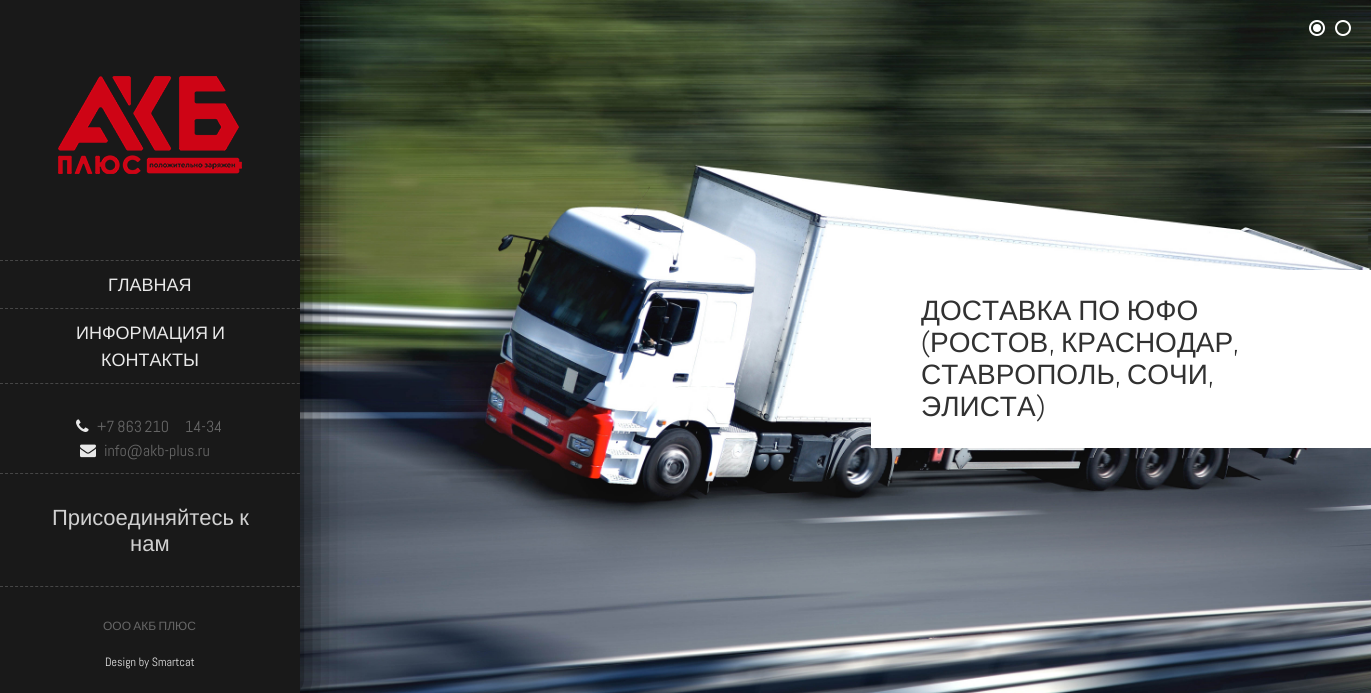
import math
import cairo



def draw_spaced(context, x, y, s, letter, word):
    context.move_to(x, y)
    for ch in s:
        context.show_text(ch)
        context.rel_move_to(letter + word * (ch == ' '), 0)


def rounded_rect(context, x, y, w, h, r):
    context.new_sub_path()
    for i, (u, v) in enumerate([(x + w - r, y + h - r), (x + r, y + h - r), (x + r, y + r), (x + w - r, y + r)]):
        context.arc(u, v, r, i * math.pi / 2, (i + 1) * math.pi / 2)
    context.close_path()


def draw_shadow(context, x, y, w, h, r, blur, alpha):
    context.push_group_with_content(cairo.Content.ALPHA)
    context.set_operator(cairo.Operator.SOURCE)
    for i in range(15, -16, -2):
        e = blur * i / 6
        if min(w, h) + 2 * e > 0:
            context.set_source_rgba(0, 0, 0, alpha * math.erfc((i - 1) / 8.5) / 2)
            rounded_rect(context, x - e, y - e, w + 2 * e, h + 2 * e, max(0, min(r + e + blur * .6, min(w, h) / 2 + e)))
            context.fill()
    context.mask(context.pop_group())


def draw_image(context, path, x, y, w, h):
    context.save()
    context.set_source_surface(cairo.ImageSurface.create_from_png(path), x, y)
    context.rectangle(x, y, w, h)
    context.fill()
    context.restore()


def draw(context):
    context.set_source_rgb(1, 1, 1)
    context.paint()
    draw_image(context, "images/4.png", 300, 0, 1071, 693)
    context.set_source_rgb(0, 0, 0)
    draw_shadow(context, 0, 0, 300, 693, 0, 25, 1)
    context.set_source_rgb(25 / 255, 25 / 255, 25 / 255)
    context.rectangle(0, 0, 300, 693)
    context.fill()
    draw_image(context, "images/1.png", 58, 76, 184, 98)
    context.new_path()
    context.move_to(0, 260.5)
    context.line_to(300, 260.5)
    context.set_source_rgb(70 / 255, 70 / 255, 70 / 255)
    context.set_line_width(1)
    context.set_dash([3, 2.03])
    context.stroke()
    context.new_path()
    context.move_to(0, 308.5)
    context.line_to(300, 308.5)
    context.stroke()
    context.new_path()
    context.move_to(0, 383.5)
    context.line_to(300, 383.5)
    context.stroke()
    context.new_path()
    context.move_to(0, 586.5)
    context.line_to(300, 586.5)
    context.stroke()
    context.new_path()
    context.move_to(0, 473.5)
    context.line_to(300, 473.5)
    context.stroke()
    draw_image(context, "images/2.png", 76, 419, 13, 13)
    draw_image(context, "images/3.png", 80, 444, 16, 14)
    context.arc(1317, 28, 7, 0, 2 * math.pi)
    context.set_source_rgb(1, 1, 1)
    context.set_line_width(2)
    context.set_dash([])
    context.stroke()
    context.arc(1317, 28, 4, 0, 2 * math.pi)
    context.fill()
    context.arc(1343, 28, 7, 0, 2 * math.pi)
    context.stroke()
    context.rectangle(871, 270, 500, 178)
    context.fill()
    context.select_font_face("Liberation Sans")
    context.set_font_size(18)
    context.set_source_rgb(232 / 255, 232 / 255, 232 / 255)
    context.move_to(108, 291)
    context.show_text("ГЛАВНАЯ")
    draw_spaced(context, 76, 339, "ИНФОРМАЦИЯ И", 0, -1)
    context.move_to(101, 366)
    context.show_text("КОНТАКТЫ")
    context.select_font_face("Abel")
    context.set_font_size(16)
    context.set_source_rgb(102 / 255, 102 / 255, 102 / 255)
    draw_spaced(context, 97, 432, "+7 863 210‑14-34", 0, -1)
    context.move_to(104, 456)
    context.show_text("info@akb-plus.ru")
    context.select_font_face("Liberation Sans")
    context.set_font_size(22)
    context.set_source_rgb(208 / 255, 208 / 255, 208 / 255)
    draw_spaced(context, 52, 525, "Присоединяйтесь к", 0, -1)
    context.move_to(130, 551)
    context.show_text("нам")
    context.set_font_size(12)
    context.set_source_rgb(102 / 255, 102 / 255, 102 / 255)
    draw_spaced(context, 103, 630, "ООО АКБ ПЛЮС", 0, -1)
    context.select_font_face("Abel")
    context.set_source_rgb(232 / 255, 232 / 255, 232 / 255)
    context.move_to(105, 666)
    context.show_text("Design by Smartcat")
    context.select_font_face("Liberation Sans")
    context.set_font_size(28)
    context.set_source_rgb(49 / 255, 49 / 255, 49 / 255)
    draw_spaced(context, 921, 320, "ДОСТАВКА ПО ЮФО", 0, -1)
    context.select_font_face("Abel")
    context.move_to(921, 352)
    context.show_text("(")
    context.select_font_face("Liberation Sans")
    context.move_to(930, 352)
    context.show_text("РОСТОВ")
    context.select_font_face("Abel")
    context.move_to(1049, 352)
    context.show_text(",")
    context.select_font_face("Liberation Sans")
    context.move_to(1061, 352)
    context.show_text("КРАСНОДАР")
    context.select_font_face("Abel")
    context.move_to(1233, 352)
    context.show_text(",")
    context.select_font_face("Liberation Sans")
    context.move_to(921, 384)
    context.show_text("СТАВРОПОЛЬ")
    context.select_font_face("Abel")
    context.move_to(1115, 384)
    context.show_text(",")
    context.select_font_face("Liberation Sans")
    context.move_to(1127, 384)
    context.show_text("СОЧИ")
    context.select_font_face("Abel")
    context.move_to(1208, 384)
    context.show_text(",")
    context.select_font_face("Liberation Sans")
    context.move_to(921, 416)
    context.show_text("ЭЛИСТА")
    context.select_font_face("Abel")
    context.move_to(1036, 416)
    context.show_text(")")


surface = cairo.ImageSurface(cairo.Format.RGB24, 1371, 693)
context = cairo.Context(surface)
options = cairo.FontOptions()
options.set_hint_metrics(cairo.HintMetrics.OFF)
options.set_hint_style(cairo.HintStyle.NONE)
context.set_font_options(options)
context.set_miter_limit(4)
draw(context)
surface.write_to_png("out.png")
